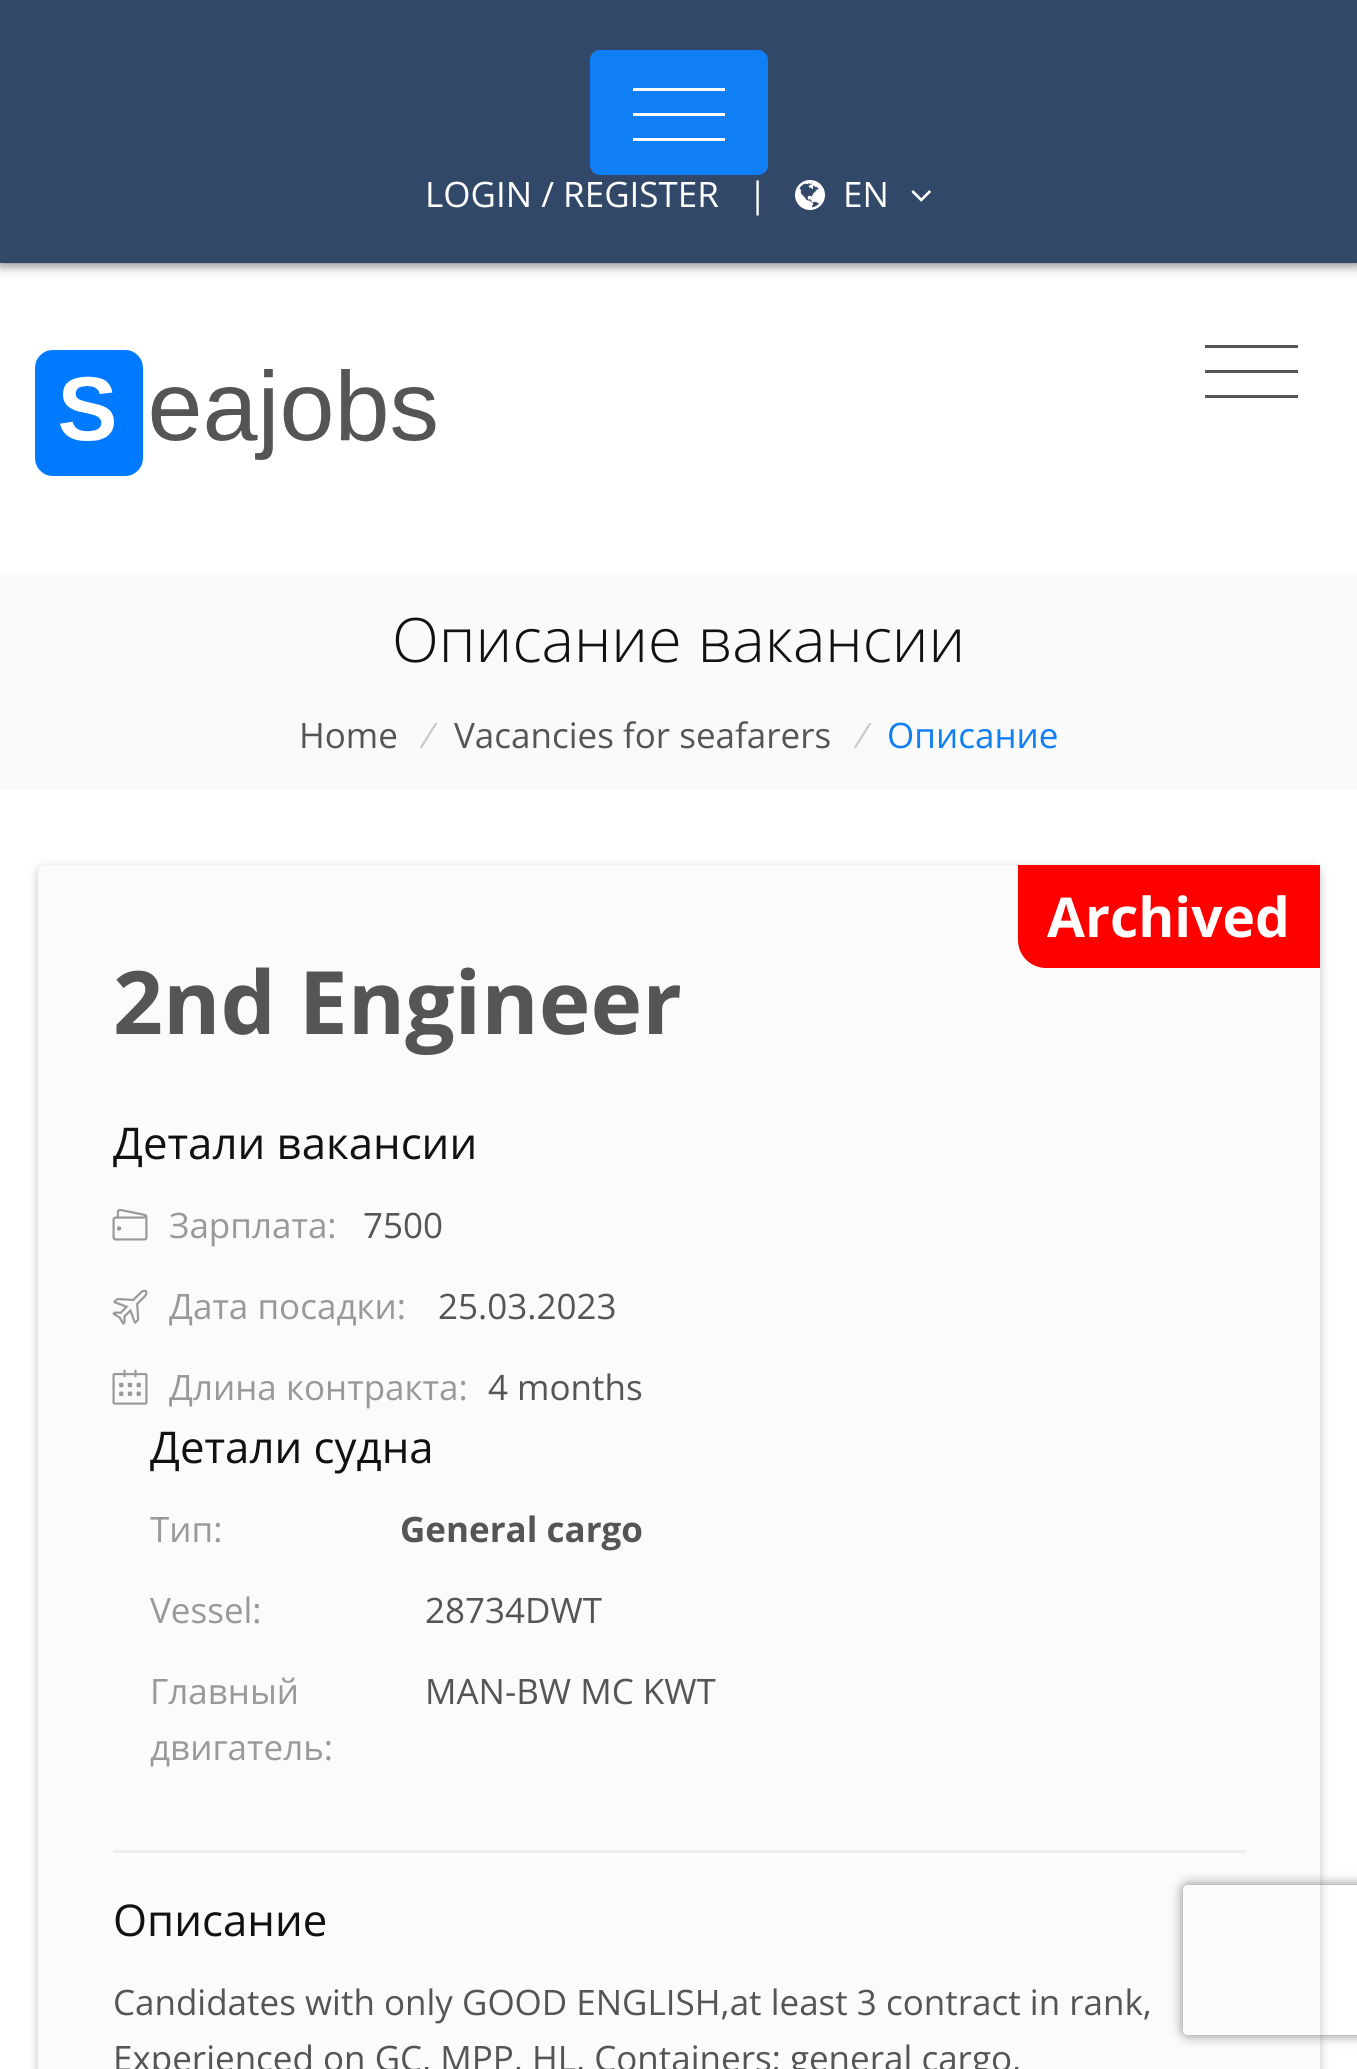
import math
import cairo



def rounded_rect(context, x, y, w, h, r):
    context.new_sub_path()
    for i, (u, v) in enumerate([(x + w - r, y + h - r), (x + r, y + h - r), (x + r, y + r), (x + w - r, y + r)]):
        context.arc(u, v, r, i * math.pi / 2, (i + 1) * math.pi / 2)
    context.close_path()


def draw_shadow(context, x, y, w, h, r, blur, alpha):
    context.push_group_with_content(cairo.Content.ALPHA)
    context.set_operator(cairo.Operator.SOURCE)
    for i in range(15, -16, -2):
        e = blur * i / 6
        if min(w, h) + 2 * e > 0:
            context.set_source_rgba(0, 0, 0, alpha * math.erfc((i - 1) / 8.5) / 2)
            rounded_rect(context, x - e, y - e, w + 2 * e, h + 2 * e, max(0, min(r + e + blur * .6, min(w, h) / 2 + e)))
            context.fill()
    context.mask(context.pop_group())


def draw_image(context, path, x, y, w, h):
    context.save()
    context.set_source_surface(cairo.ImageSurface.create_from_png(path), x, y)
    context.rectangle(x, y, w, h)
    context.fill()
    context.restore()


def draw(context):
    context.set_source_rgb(1, 1, 1)
    context.paint()
    context.set_source_rgb(123 / 255, 119 / 255, 119 / 255)
    draw_shadow(context, 0, 3, 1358, 262, 0, 6, 1)
    context.set_source_rgb(49 / 255, 72 / 255, 104 / 255)
    context.rectangle(0, 0, 1357, 263)
    context.fill()
    context.set_source_rgb(16 / 255, 126 / 255, 244 / 255)
    rounded_rect(context, 590, 50, 178, 125, 10)
    context.fill()
    context.set_source_rgb(1, 1, 1)
    context.rectangle(633, 88, 92, 3)
    context.fill()
    context.rectangle(633, 113, 92, 3)
    context.fill()
    context.rectangle(633, 138, 92, 3)
    context.fill()
    draw_image(context, "images/1.png", 795, 180, 30, 30)
    draw_image(context, "images/2.png", 911, 190, 20, 12)
    draw_image(context, "images/3.png", 35, 350, 401, 126)
    context.set_source_rgb(85 / 255, 85 / 255, 85 / 255)
    context.rectangle(1205, 345, 93, 3)
    context.fill()
    context.rectangle(1205, 370, 93, 3)
    context.fill()
    context.rectangle(1205, 395, 93, 3)
    context.fill()
    context.set_source_rgb(250 / 255, 250 / 255, 250 / 255)
    context.rectangle(0, 573, 1357, 217)
    context.fill()
    context.set_source_rgb(60 / 255, 64 / 255, 67 / 255)
    draw_shadow(context, 35, 865, 1288, 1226, 10, 4, 0.15)
    draw_shadow(context, 38, 868, 1282, 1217, 8, 2.5, 0.1)
    context.set_source_rgb(251 / 255, 251 / 255, 251 / 255)
    rounded_rect(context, 38, 865, 1282, 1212, 8)
    context.fill()
    context.set_source_rgb(1, 0, 0)
    context.new_path()
    context.move_to(1018, 865)
    context.line_to(1320, 865)
    context.line_to(1320, 968)
    context.line_to(1046, 968)
    context.curve_to(1030.5, 968, 1018, 955.5, 1018, 940)
    context.close_path()
    context.fill()
    draw_image(context, "images/4.png", 112, 1208, 36, 33)
    draw_image(context, "images/5.png", 112, 1289, 36, 36)
    draw_image(context, "images/6.png", 112, 1369, 36, 36)
    context.set_source_rgb(238 / 255, 238 / 255, 238 / 255)
    context.rectangle(113, 1850, 1132, 3)
    context.fill()
    context.save()
    context.set_fill_rule(cairo.FillRule.EVEN_ODD)
    context.new_path()
    context.move_to(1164, 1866)
    context.line_to(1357, 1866)
    context.line_to(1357, 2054)
    context.line_to(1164, 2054)
    context.close_path()
    context.move_to(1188, 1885)
    context.line_to(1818, 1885)
    context.curve_to(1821, 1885, 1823, 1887, 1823, 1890)
    context.line_to(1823, 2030)
    context.curve_to(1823, 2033, 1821, 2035, 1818, 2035)
    context.line_to(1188, 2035)
    context.curve_to(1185, 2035, 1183, 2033, 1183, 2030)
    context.line_to(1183, 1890)
    context.curve_to(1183, 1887, 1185, 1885, 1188, 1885)
    context.close_path()
    context.clip()
    context.set_source_rgb(128 / 255, 128 / 255, 128 / 255)
    draw_shadow(context, 1183, 1885, 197, 150, 5, 6, 1)
    context.restore()
    context.select_font_face("Open Sans")
    context.set_font_size(35)
    context.set_source_rgb(1, 1, 1)
    context.move_to(425, 207)
    context.show_text("LOGIN / REGISTER")
    context.move_to(748, 207)
    context.show_text("|")
    context.move_to(843, 207)
    context.show_text("EN")
    context.select_font_face("Open Sans Light")
    context.set_font_size(61.25)
    context.set_source_rgb(17 / 255, 17 / 255, 17 / 255)
    context.move_to(392, 662)
    context.show_text("Описание вакансии")
    context.select_font_face("Open Sans")
    context.set_font_size(35)
    context.set_source_rgb(85 / 255, 85 / 255, 85 / 255)
    context.move_to(299, 748)
    context.show_text("Home")
    context.select_font_face("Open Sans", cairo.FontSlant.ITALIC)
    context.set_source_rgb(204 / 255, 204 / 255, 204 / 255)
    context.move_to(419, 748)
    context.show_text("/")
    context.select_font_face("Open Sans")
    context.set_source_rgb(85 / 255, 85 / 255, 85 / 255)
    context.move_to(454, 748)
    context.show_text("Vacancies for seafarers")
    context.select_font_face("Open Sans", cairo.FontSlant.ITALIC)
    context.set_source_rgb(204 / 255, 204 / 255, 204 / 255)
    context.move_to(853, 748)
    context.show_text("/")
    context.select_font_face("Open Sans")
    context.set_source_rgb(16 / 255, 126 / 255, 244 / 255)
    context.move_to(887, 748)
    context.show_text("Описание")
    context.select_font_face("Open Sans", cairo.FontSlant.NORMAL, cairo.FontWeight.BOLD)
    context.set_font_size(55)
    context.set_source_rgb(1, 1, 1)
    context.move_to(1047, 937)
    context.show_text("Archived")
    context.set_font_size(87.5)
    context.set_source_rgb(85 / 255, 85 / 255, 85 / 255)
    context.move_to(113, 1034)
    context.show_text("2nd Engineer")
    context.select_font_face("Open Sans")
    context.set_font_size(43.75)
    context.set_source_rgb(17 / 255, 17 / 255, 17 / 255)
    context.move_to(113, 1159)
    context.show_text("Детали вакансии")
    context.set_font_size(35)
    context.set_source_rgb(153 / 255, 153 / 255, 153 / 255)
    context.move_to(169, 1238)
    context.show_text("Зарплата:")
    context.set_source_rgb(85 / 255, 85 / 255, 85 / 255)
    context.move_to(363, 1238)
    context.show_text("7500")
    context.set_source_rgb(153 / 255, 153 / 255, 153 / 255)
    context.move_to(169, 1319)
    context.show_text("Дата посадки:")
    context.set_source_rgb(85 / 255, 85 / 255, 85 / 255)
    context.move_to(438, 1319)
    context.show_text("25.03.2023")
    context.set_source_rgb(153 / 255, 153 / 255, 153 / 255)
    context.move_to(169, 1400)
    context.show_text("Длина контракта:")
    context.set_source_rgb(85 / 255, 85 / 255, 85 / 255)
    context.move_to(488, 1400)
    context.show_text("4 months")
    context.set_font_size(43.75)
    context.set_source_rgb(17 / 255, 17 / 255, 17 / 255)
    context.move_to(150, 1463)
    context.show_text("Детали судна")
    context.set_font_size(35)
    context.set_source_rgb(153 / 255, 153 / 255, 153 / 255)
    context.move_to(150, 1542)
    context.show_text("Тип:")
    context.select_font_face("Open Sans", cairo.FontSlant.NORMAL, cairo.FontWeight.BOLD)
    context.set_source_rgb(85 / 255, 85 / 255, 85 / 255)
    context.move_to(400, 1542)
    context.show_text("General cargo")
    context.select_font_face("Open Sans")
    context.set_source_rgb(153 / 255, 153 / 255, 153 / 255)
    context.move_to(150, 1623)
    context.show_text("Vessel:")
    context.set_source_rgb(85 / 255, 85 / 255, 85 / 255)
    context.move_to(425, 1623)
    context.show_text("28734DWT")
    context.set_source_rgb(153 / 255, 153 / 255, 153 / 255)
    context.move_to(150, 1704)
    context.show_text("Главный")
    context.move_to(150, 1760)
    context.show_text("двигатель:")
    context.set_source_rgb(85 / 255, 85 / 255, 85 / 255)
    context.move_to(425, 1704)
    context.show_text("MAN-BW MC KWT")
    context.set_font_size(43.75)
    context.set_source_rgb(17 / 255, 17 / 255, 17 / 255)
    context.move_to(113, 1936)
    context.show_text("Описание")
    context.set_font_size(35)
    context.set_source_rgb(85 / 255, 85 / 255, 85 / 255)
    context.move_to(113, 2015)
    context.show_text("Candidates with only GOOD ENGLISH,at least 3 contract in rank,")
    context.move_to(113, 2071)
    context.show_text("Experienced on GC, MPP, HL, Containers; general cargo,")


surface = cairo.ImageSurface(cairo.Format.RGB24, 1357, 2069)
context = cairo.Context(surface)
options = cairo.FontOptions()
options.set_hint_metrics(cairo.HintMetrics.OFF)
options.set_hint_style(cairo.HintStyle.NONE)
context.set_font_options(options)
context.set_miter_limit(4)
draw(context)
surface.write_to_png("out.png")
